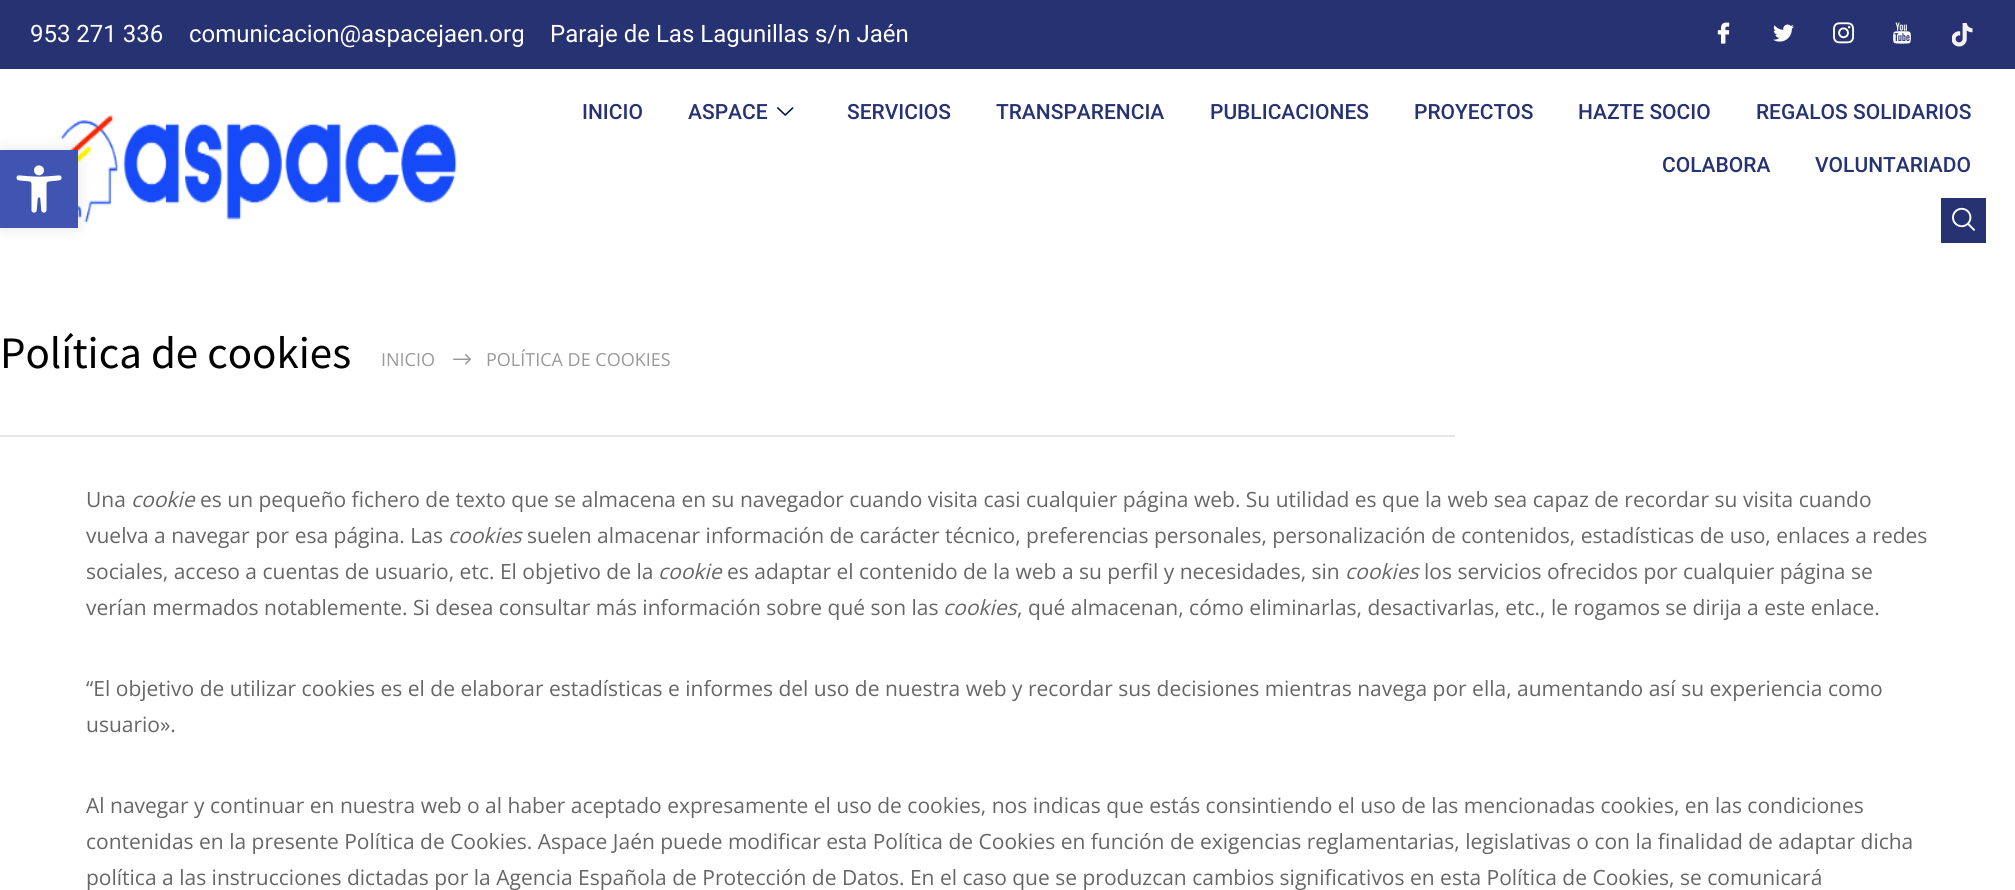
import math
import cairo



def rounded_rect(context, x, y, w, h, r):
    context.new_sub_path()
    for i, (u, v) in enumerate([(x + w - r, y + h - r), (x + r, y + h - r), (x + r, y + r), (x + w - r, y + r)]):
        context.arc(u, v, r, i * math.pi / 2, (i + 1) * math.pi / 2)
    context.close_path()


def draw_shadow(context, x, y, w, h, r, blur, alpha):
    context.push_group_with_content(cairo.Content.ALPHA)
    context.set_operator(cairo.Operator.SOURCE)
    for i in range(15, -16, -2):
        e = blur * i / 6
        if min(w, h) + 2 * e > 0:
            context.set_source_rgba(0, 0, 0, alpha * math.erfc((i - 1) / 8.5) / 2)
            rounded_rect(context, x - e, y - e, w + 2 * e, h + 2 * e, max(0, min(r + e + blur * .6, min(w, h) / 2 + e)))
            context.fill()
    context.mask(context.pop_group())


def draw_image(context, path, x, y, w, h):
    context.save()
    context.set_source_surface(cairo.ImageSurface.create_from_png(path), x, y)
    context.rectangle(x, y, w, h)
    context.fill()
    context.restore()


def draw(context):
    context.set_source_rgb(1, 1, 1)
    context.paint()
    context.set_source_rgb(39 / 255, 50 / 255, 114 / 255)
    context.rectangle(0, 0, 2015, 69)
    context.fill()
    draw_image(context, "images/1.png", 1717, 22, 13, 22)
    draw_image(context, "images/2.png", 1773, 24, 21, 18)
    draw_image(context, "images/3.png", 1833, 22, 22, 22)
    draw_image(context, "images/4.png", 1893, 22, 18, 22)
    draw_image(context, "images/5.png", 1952, 23, 21, 24)
    draw_image(context, "images/6.png", 39, 114, 418, 110)
    draw_image(context, "images/7.png", 777, 107, 17, 9)
    context.rectangle(1941, 198, 45, 45)
    context.fill()
    draw_image(context, "images/8.png", 1952, 207, 23, 24)
    context.set_source_rgb(0, 0, 0)
    draw_shadow(context, 0, 150, 78, 78, 0, 7.5, 0.1)
    context.set_source_rgb(64 / 255, 84 / 255, 178 / 255)
    context.rectangle(0, 150, 78, 78)
    context.fill()
    draw_image(context, "images/9.png", 16, 165, 46, 48)
    context.set_source_rgb(229 / 255, 229 / 255, 229 / 255)
    context.rectangle(0, 435, 1455, 2)
    context.fill()
    draw_image(context, "images/10.png", 453, 354, 18, 11)
    context.select_font_face("Roboto")
    context.set_font_size(24)
    context.set_source_rgb(1, 1, 1)
    context.move_to(30, 42)
    context.show_text("953 271 336")
    context.move_to(189, 42)
    context.show_text("comunicacion@aspacejaen.org")
    context.move_to(550, 42)
    context.show_text("Paraje de Las Lagunillas s/n Jaén")
    context.select_font_face("Roboto Medium")
    context.set_font_size(21)
    context.set_source_rgb(39 / 255, 50 / 255, 114 / 255)
    context.move_to(582, 119)
    context.show_text("INICIO")
    context.move_to(688, 119)
    context.show_text("ASPACE")
    context.move_to(847, 119)
    context.show_text("SERVICIOS")
    context.move_to(996, 119)
    context.show_text("TRANSPARENCIA")
    context.move_to(1210, 119)
    context.show_text("PUBLICACIONES")
    context.move_to(1414, 119)
    context.show_text("PROYECTOS")
    context.move_to(1578, 119)
    context.show_text("HAZTE SOCIO")
    context.move_to(1756, 119)
    context.show_text("REGALOS SOLIDARIOS")
    context.move_to(1662, 172)
    context.show_text("COLABORA")
    context.move_to(1815, 172)
    context.show_text("VOLUNTARIADO")
    context.select_font_face("Source Sans Pro")
    context.set_font_size(45)
    context.set_source_rgb(0, 0, 0)
    context.move_to(0, 368)
    context.show_text("Política de cookies")
    context.select_font_face("Open Sans")
    context.set_font_size(18)
    context.set_source_rgb(153 / 255, 153 / 255, 153 / 255)
    context.move_to(381, 366)
    context.show_text("INICIO")
    context.move_to(486, 366)
    context.show_text("POLÍTICA DE COOKIES")
    context.set_font_size(21)
    context.set_source_rgb(102 / 255, 102 / 255, 102 / 255)
    context.move_to(86, 507)
    context.show_text("Una")
    context.select_font_face("Open Sans", cairo.FontSlant.ITALIC)
    context.move_to(131, 507)
    context.show_text("cookie")
    context.select_font_face("Open Sans")
    context.move_to(200, 507)
    context.show_text("es un pequeño fichero de texto que se almacena en su navegador cuando visita casi cualquier página web. Su utilidad es que la web sea capaz de recordar su visita cuando")
    context.move_to(86, 543)
    context.show_text("vuelva a navegar por esa página. Las")
    context.select_font_face("Open Sans", cairo.FontSlant.ITALIC)
    context.move_to(448, 543)
    context.show_text("cookies")
    context.select_font_face("Open Sans")
    context.move_to(527, 543)
    context.show_text("suelen almacenar información de carácter técnico, preferencias personales, personalización de contenidos, estadísticas de uso, enlaces a redes")
    context.move_to(86, 579)
    context.show_text("sociales, acceso a cuentas de usuario, etc. El objetivo de la")
    context.select_font_face("Open Sans", cairo.FontSlant.ITALIC)
    context.move_to(658, 579)
    context.show_text("cookie")
    context.select_font_face("Open Sans")
    context.move_to(727, 579)
    context.show_text("es adaptar el contenido de la web a su perfil y necesidades, sin")
    context.select_font_face("Open Sans", cairo.FontSlant.ITALIC)
    context.move_to(1345, 579)
    context.show_text("cookies")
    context.select_font_face("Open Sans")
    context.move_to(1424, 579)
    context.show_text("los servicios ofrecidos por cualquier página se")
    context.move_to(86, 615)
    context.show_text("verían mermados notablemente. Si desea consultar más información sobre qué son las")
    context.select_font_face("Open Sans", cairo.FontSlant.ITALIC)
    context.move_to(943, 615)
    context.show_text("cookies")
    context.select_font_face("Open Sans")
    context.move_to(1017, 615)
    context.show_text(", qué almacenan, cómo eliminarlas, desactivarlas, etc., le rogamos se dirija a este enlace.")
    context.move_to(86, 696)
    context.show_text("“El objetivo de utilizar cookies es el de elaborar estadísticas e informes del uso de nuestra web y recordar sus decisiones mientras navega por ella, aumentando así su experiencia como")
    context.move_to(86, 732)
    context.show_text("usuario».")
    context.move_to(86, 813)
    context.show_text("Al navegar y continuar en nuestra web o al haber aceptado expresamente el uso de cookies, nos indicas que estás consintiendo el uso de las mencionadas cookies, en las condiciones")
    context.move_to(86, 849)
    context.show_text("contenidas en la presente Política de Cookies. Aspace Jaén puede modificar esta Política de Cookies en función de exigencias reglamentarias, legislativas o con la finalidad de adaptar dicha")
    context.move_to(86, 885)
    context.show_text("política a las instrucciones dictadas por la Agencia Española de Protección de Datos. En el caso que se produzcan cambios significativos en esta Política de Cookies, se comunicará")


surface = cairo.ImageSurface(cairo.Format.RGB24, 2015, 890)
context = cairo.Context(surface)
options = cairo.FontOptions()
options.set_hint_metrics(cairo.HintMetrics.OFF)
options.set_hint_style(cairo.HintStyle.NONE)
context.set_font_options(options)
context.set_miter_limit(4)
draw(context)
surface.write_to_png("out.png")
